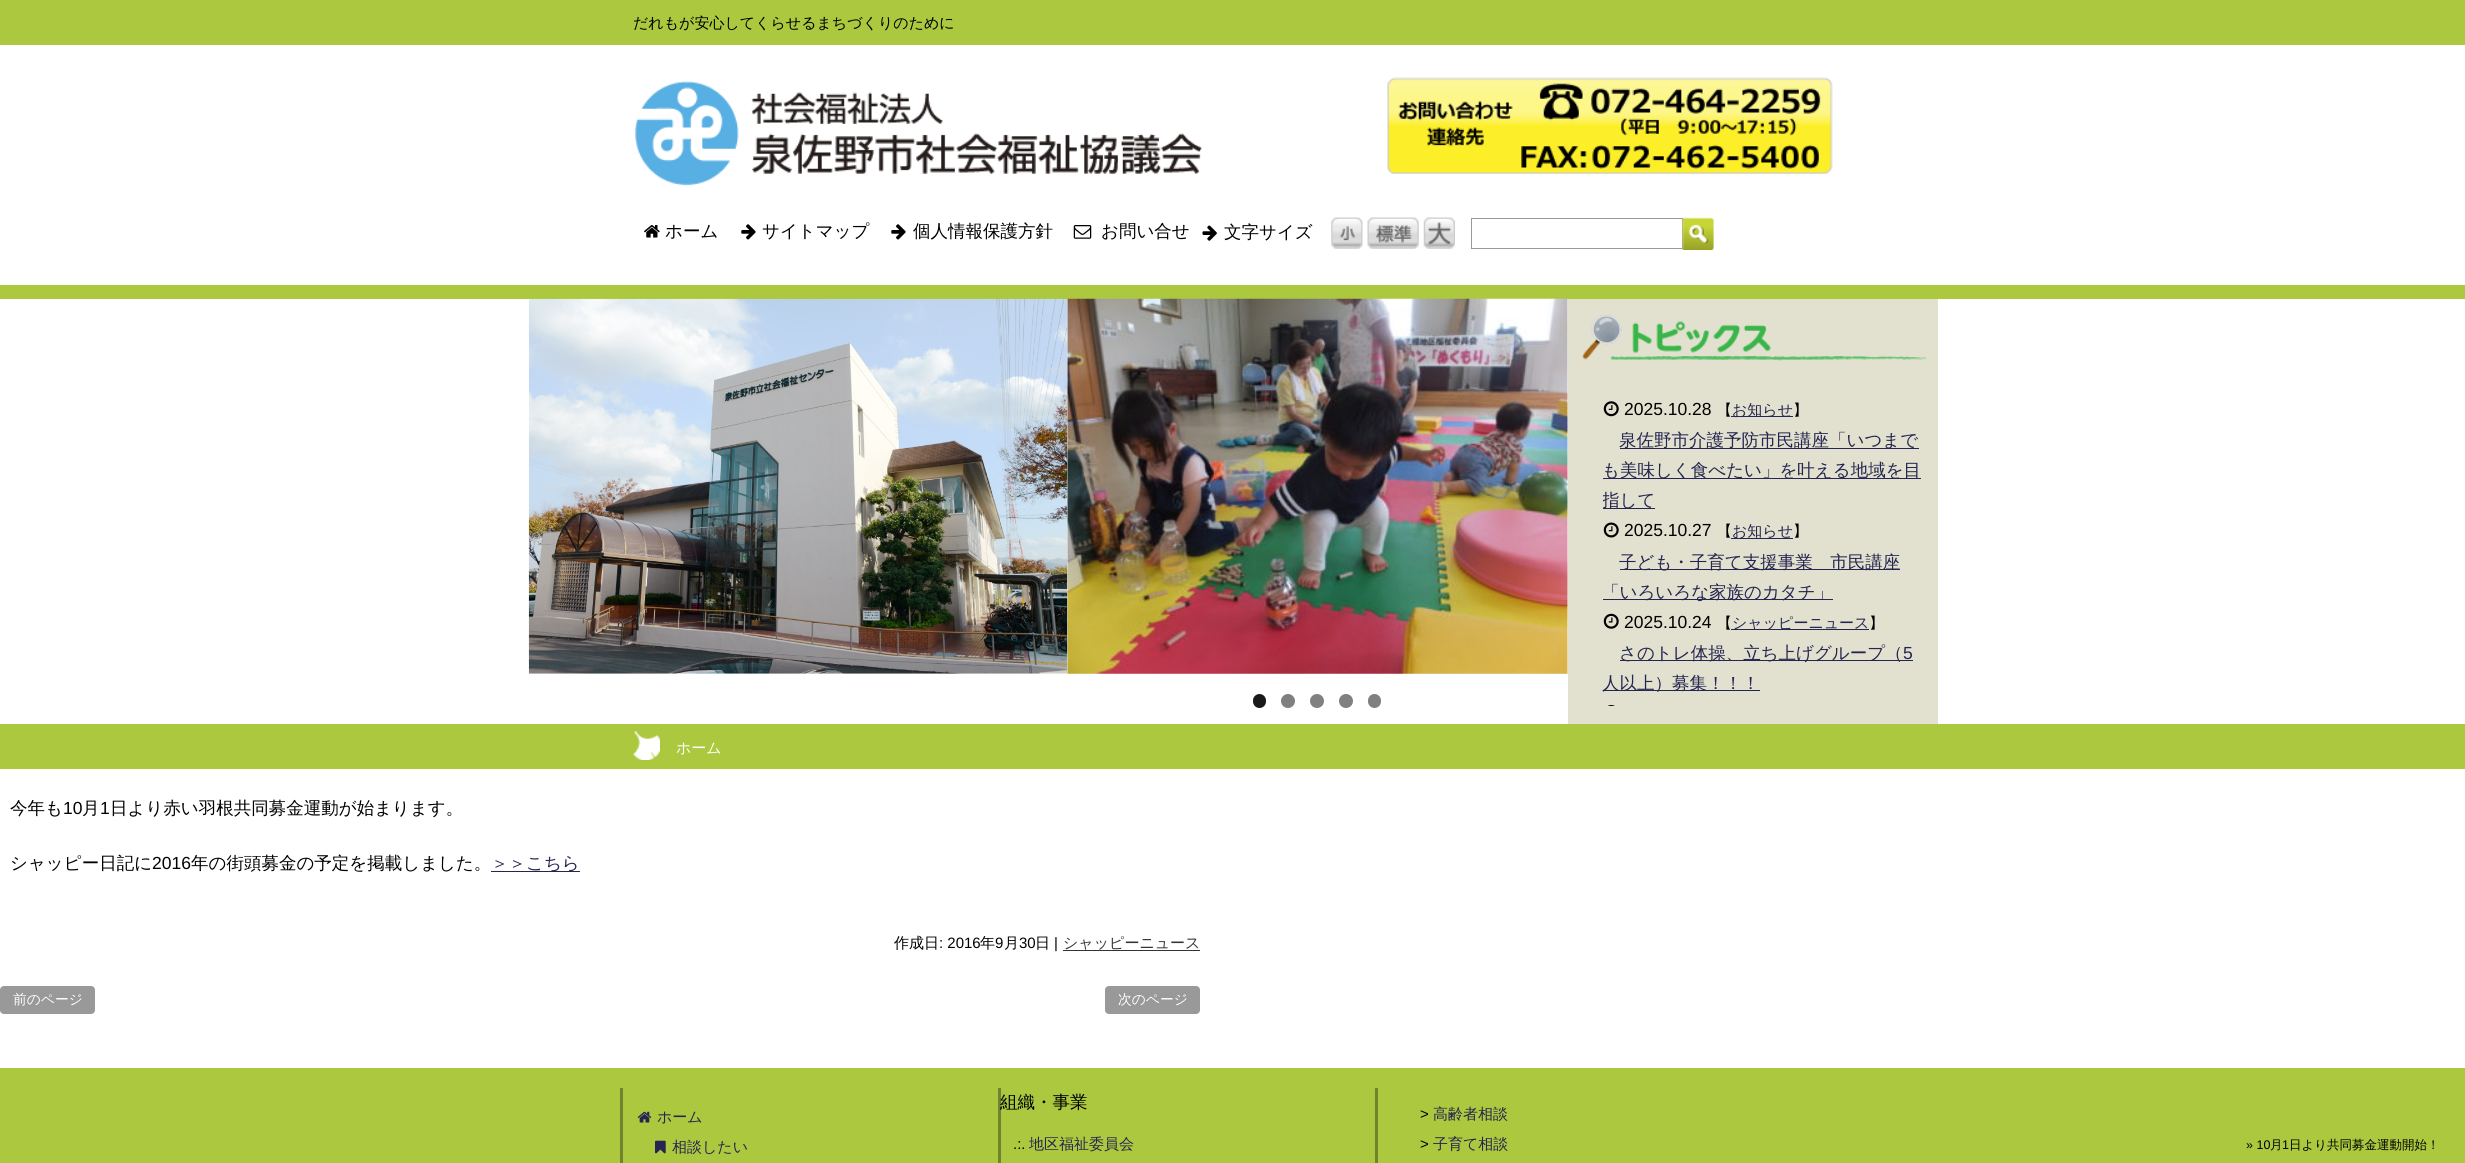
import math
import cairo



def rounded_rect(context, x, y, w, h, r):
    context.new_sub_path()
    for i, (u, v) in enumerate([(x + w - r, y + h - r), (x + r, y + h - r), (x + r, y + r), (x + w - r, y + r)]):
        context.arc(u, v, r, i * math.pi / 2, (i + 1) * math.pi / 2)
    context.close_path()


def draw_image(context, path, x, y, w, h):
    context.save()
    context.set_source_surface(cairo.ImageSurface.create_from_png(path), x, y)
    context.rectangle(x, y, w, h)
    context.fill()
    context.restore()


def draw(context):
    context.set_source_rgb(1, 1, 1)
    context.paint()
    context.set_source_rgb(172 / 255, 200 / 255, 62 / 255)
    context.rectangle(0, 0, 2465, 45)
    context.fill()
    draw_image(context, "images/1.png", 635, 81, 567, 105)
    draw_image(context, "images/2.png", 1387, 77, 446, 97)
    draw_image(context, "images/3.png", 644, 225, 16, 13)
    draw_image(context, "images/4.png", 741, 224, 15, 16)
    draw_image(context, "images/4.png", 891, 224, 15, 16)
    draw_image(context, "images/5.png", 1073, 225, 19, 14)
    draw_image(context, "images/6.png", 1202, 225, 15, 16)
    draw_image(context, "images/7.png", 1331, 217, 32, 32)
    draw_image(context, "images/8.png", 1367, 217, 52, 32)
    draw_image(context, "images/9.png", 1423, 217, 32, 32)
    context.rectangle(1471.5, 218.5, 211, 30)
    context.set_source_rgb(153 / 255, 153 / 255, 153 / 255)
    context.set_line_width(1)
    context.stroke()
    draw_image(context, "images/10.png", 1682, 217, 32, 33)
    context.set_source_rgb(172 / 255, 200 / 255, 62 / 255)
    context.rectangle(0, 285, 2465, 14)
    context.fill()
    draw_image(context, "images/11.png", 528, 298, 540, 376)
    draw_image(context, "images/12.png", 1067, 298, 501, 376)
    context.set_source_rgb(26 / 255, 26 / 255, 26 / 255)
    rounded_rect(context, 1253, 694, 13, 14, 6.5)
    context.fill()
    context.set_source_rgb(128 / 255, 128 / 255, 128 / 255)
    context.arc(1288, 701, 7, 0, 2 * math.pi)
    context.fill()
    context.arc(1317, 701, 7, 0, 2 * math.pi)
    context.fill()
    context.arc(1346, 701, 7, 0, 2 * math.pi)
    context.fill()
    rounded_rect(context, 1368, 694, 13, 14, 6.5)
    context.fill()
    context.set_source_rgb(226 / 255, 225 / 255, 207 / 255)
    context.rectangle(1568, 299, 370, 425)
    context.fill()
    draw_image(context, "images/13.png", 1582, 314, 345, 47)
    draw_image(context, "images/14.png", 1603, 401, 16, 16)
    context.set_source_rgb(36 / 255, 37 / 255, 80 / 255)
    context.rectangle(1731, 416, 62, 1)
    context.fill()
    context.rectangle(1620, 448, 299, 1)
    context.fill()
    context.rectangle(1603, 478, 318, 1)
    context.fill()
    context.rectangle(1603, 508, 52, 1)
    context.fill()
    draw_image(context, "images/15.png", 1603, 522, 16, 16)
    context.rectangle(1731, 538, 62, 1)
    context.fill()
    context.rectangle(1620, 569, 280, 1)
    context.fill()
    context.rectangle(1603, 599, 230, 1)
    context.fill()
    draw_image(context, "images/16.png", 1603, 613, 16, 16)
    context.rectangle(1731, 629, 138, 1)
    context.fill()
    context.rectangle(1620, 660, 293, 1)
    context.fill()
    context.rectangle(1603, 690, 157, 1)
    context.fill()
    draw_image(context, "images/17.png", 1607, 705, 8, 1)
    context.set_source_rgb(172 / 255, 200 / 255, 62 / 255)
    context.rectangle(0, 724, 2465, 45)
    context.fill()
    draw_image(context, "images/18.png", 632, 731, 28, 29)
    context.set_source_rgb(36 / 255, 37 / 255, 80 / 255)
    context.rectangle(491, 871, 89, 1)
    context.fill()
    context.set_source_rgb(51 / 255, 51 / 255, 51 / 255)
    context.rectangle(1063, 950, 137, 1)
    context.fill()
    context.set_source_rgb(153 / 255, 153 / 255, 153 / 255)
    rounded_rect(context, 0, 986, 95, 28, 4)
    context.fill()
    rounded_rect(context, 1105, 986, 95, 28, 4)
    context.fill()
    context.set_source_rgb(172 / 255, 200 / 255, 62 / 255)
    context.rectangle(0, 1068, 2465, 95)
    context.fill()
    context.set_source_rgb(113 / 255, 131 / 255, 44 / 255)
    context.rectangle(620, 1088, 3, 75)
    context.fill()
    draw_image(context, "images/19.png", 637, 1111, 15, 12)
    draw_image(context, "images/20.png", 655, 1140, 11, 14)
    context.rectangle(998, 1088, 3, 75)
    context.fill()
    context.rectangle(1375, 1088, 3, 75)
    context.fill()
    context.select_font_face("WenQuanYi Zen Hei Medium")
    context.set_font_size(15)
    context.set_source_rgb(0, 0, 0)
    context.move_to(633, 28)
    context.show_text("だれもが安心してくらせるまちづくりのために")
    context.set_font_size(17.5)
    context.move_to(665, 237)
    context.show_text("ホーム")
    context.move_to(762, 237)
    context.show_text("サイトマップ")
    context.move_to(913, 237)
    context.show_text("個人情報保護方針")
    context.move_to(1101, 237)
    context.show_text("お問い合せ")
    context.move_to(1224, 238)
    context.show_text("文字サイズ")
    context.select_font_face("Liberation Sans")
    context.move_to(1624, 415)
    context.show_text("2025.10.28")
    context.select_font_face("WenQuanYi Zen Hei Medium")
    context.set_font_size(15)
    context.move_to(1717, 415)
    context.show_text("【")
    context.set_source_rgb(36 / 255, 37 / 255, 80 / 255)
    context.move_to(1732, 415)
    context.show_text("お知らせ")
    context.set_source_rgb(0, 0, 0)
    context.move_to(1793, 415)
    context.show_text("】")
    context.set_font_size(17.5)
    context.set_source_rgb(36 / 255, 37 / 255, 80 / 255)
    context.move_to(1619, 446)
    context.show_text("泉佐野市介護予防市民講座「いつまで")
    context.move_to(1602, 476)
    context.show_text("も美味しく食べたい」を叶える地域を目")
    context.save()
    context.rectangle(1603, 394, 325, 312)
    context.clip()
    context.move_to(1602, 506)
    context.show_text("指して")
    context.restore()
    context.select_font_face("Liberation Sans")
    context.set_source_rgb(0, 0, 0)
    context.move_to(1624, 536)
    context.show_text("2025.10.27")
    context.select_font_face("WenQuanYi Zen Hei Medium")
    context.set_font_size(15)
    context.move_to(1717, 536)
    context.show_text("【")
    context.set_source_rgb(36 / 255, 37 / 255, 80 / 255)
    context.move_to(1732, 536)
    context.show_text("お知らせ")
    context.set_source_rgb(0, 0, 0)
    context.move_to(1793, 536)
    context.show_text("】")
    context.set_font_size(17.5)
    context.set_source_rgb(36 / 255, 37 / 255, 80 / 255)
    context.move_to(1619, 568)
    context.show_text("子ども・子育て支援事業　市民講座")
    context.move_to(1602, 598)
    context.show_text("「いろいろな家族のカタチ」")
    context.select_font_face("Liberation Sans")
    context.set_source_rgb(0, 0, 0)
    context.move_to(1624, 628)
    context.show_text("2025.10.24")
    context.select_font_face("WenQuanYi Zen Hei Medium")
    context.set_font_size(15)
    context.move_to(1717, 628)
    context.show_text("【")
    context.set_source_rgb(36 / 255, 37 / 255, 80 / 255)
    context.move_to(1732, 628)
    context.show_text("シャッピーニュース")
    context.set_source_rgb(0, 0, 0)
    context.move_to(1869, 628)
    context.show_text("】")
    context.set_font_size(17.5)
    context.set_source_rgb(36 / 255, 37 / 255, 80 / 255)
    context.move_to(1619, 659)
    context.show_text("さのトレ体操、立ち上げグループ（")
    context.select_font_face("Liberation Sans")
    context.move_to(1903, 659)
    context.show_text("5")
    context.select_font_face("WenQuanYi Zen Hei Medium")
    context.move_to(1602, 689)
    context.show_text("人以上）募集！！！")
    context.set_font_size(15)
    context.set_source_rgb(1, 1, 1)
    context.move_to(676, 753)
    context.show_text("ホーム")
    context.set_font_size(17.5)
    context.set_source_rgb(0, 0, 0)
    context.move_to(10, 814)
    context.show_text("今年も")
    context.select_font_face("Liberation Sans")
    context.move_to(63, 814)
    context.show_text("10")
    context.select_font_face("WenQuanYi Zen Hei Medium")
    context.move_to(82, 814)
    context.show_text("月")
    context.select_font_face("Liberation Sans")
    context.move_to(100, 814)
    context.show_text("1")
    context.select_font_face("WenQuanYi Zen Hei Medium")
    context.move_to(110, 814)
    context.show_text("日より赤い羽根共同募金運動が始まります。")
    context.move_to(10, 869)
    context.show_text("シャッピー日記に")
    context.select_font_face("Liberation Sans")
    context.move_to(152, 869)
    context.show_text("2016")
    context.select_font_face("WenQuanYi Zen Hei Medium")
    context.move_to(191, 869)
    context.show_text("年の街頭募金の予定を掲載しました。")
    context.set_source_rgb(36 / 255, 37 / 255, 80 / 255)
    context.move_to(491, 869)
    context.show_text("＞＞こちら")
    context.set_font_size(15)
    context.set_source_rgb(0, 0, 0)
    context.move_to(894, 948)
    context.show_text("作成日")
    context.select_font_face("Liberation Sans")
    context.move_to(939, 948)
    context.show_text(": 2016")
    context.select_font_face("WenQuanYi Zen Hei Medium")
    context.move_to(980, 948)
    context.show_text("年")
    context.select_font_face("Liberation Sans")
    context.move_to(995, 948)
    context.show_text("9")
    context.select_font_face("WenQuanYi Zen Hei Medium")
    context.move_to(1004, 948)
    context.show_text("月")
    context.select_font_face("Liberation Sans")
    context.move_to(1019, 948)
    context.show_text("30")
    context.select_font_face("WenQuanYi Zen Hei Medium")
    context.move_to(1035, 948)
    context.show_text("日")
    context.select_font_face("Liberation Sans")
    context.move_to(1054, 948)
    context.show_text("|")
    context.select_font_face("WenQuanYi Zen Hei Medium")
    context.set_source_rgb(51 / 255, 51 / 255, 51 / 255)
    context.move_to(1063, 948)
    context.show_text("シャッピーニュース")
    context.set_font_size(13.75)
    context.set_source_rgb(1, 1, 1)
    context.move_to(13, 1004)
    context.show_text("前のページ")
    context.move_to(1118, 1004)
    context.show_text("次のページ")
    context.set_font_size(15)
    context.set_source_rgb(36 / 255, 37 / 255, 80 / 255)
    context.move_to(657, 1122)
    context.show_text("ホーム")
    context.move_to(672, 1152)
    context.show_text("相談したい")
    context.set_font_size(17.5)
    context.set_source_rgb(0, 0, 0)
    context.move_to(1000, 1108)
    context.show_text("組織・事業")
    context.select_font_face("Liberation Sans")
    context.set_font_size(15)
    context.move_to(1013, 1149)
    context.show_text(".:.")
    context.select_font_face("WenQuanYi Zen Hei Medium")
    context.set_source_rgb(36 / 255, 37 / 255, 80 / 255)
    context.move_to(1029, 1149)
    context.show_text("地区福祉委員会")
    context.select_font_face("Liberation Sans")
    context.set_source_rgb(0, 0, 0)
    context.move_to(1420, 1119)
    context.show_text(">")
    context.select_font_face("WenQuanYi Zen Hei Medium")
    context.set_source_rgb(36 / 255, 37 / 255, 80 / 255)
    context.move_to(1433, 1119)
    context.show_text("高齢者相談")
    context.select_font_face("Liberation Sans")
    context.set_source_rgb(0, 0, 0)
    context.move_to(1420, 1149)
    context.show_text(">")
    context.select_font_face("WenQuanYi Zen Hei Medium")
    context.set_source_rgb(36 / 255, 37 / 255, 80 / 255)
    context.move_to(1433, 1149)
    context.show_text("子育て相談")
    context.select_font_face("Liberation Sans")
    context.set_font_size(12.5)
    context.set_source_rgb(0, 0, 0)
    context.move_to(2246, 1149)
    context.show_text("» 10")
    context.select_font_face("WenQuanYi Zen Hei Medium")
    context.move_to(2270, 1149)
    context.show_text("月")
    context.select_font_face("Liberation Sans")
    context.move_to(2282, 1149)
    context.show_text("1")
    context.select_font_face("WenQuanYi Zen Hei Medium")
    context.move_to(2289, 1149)
    context.show_text("日より共同募金運動開始！")


surface = cairo.ImageSurface(cairo.Format.RGB24, 2465, 1163)
context = cairo.Context(surface)
options = cairo.FontOptions()
options.set_hint_metrics(cairo.HintMetrics.OFF)
options.set_hint_style(cairo.HintStyle.NONE)
context.set_font_options(options)
context.set_miter_limit(4)
draw(context)
surface.write_to_png("out.png")
